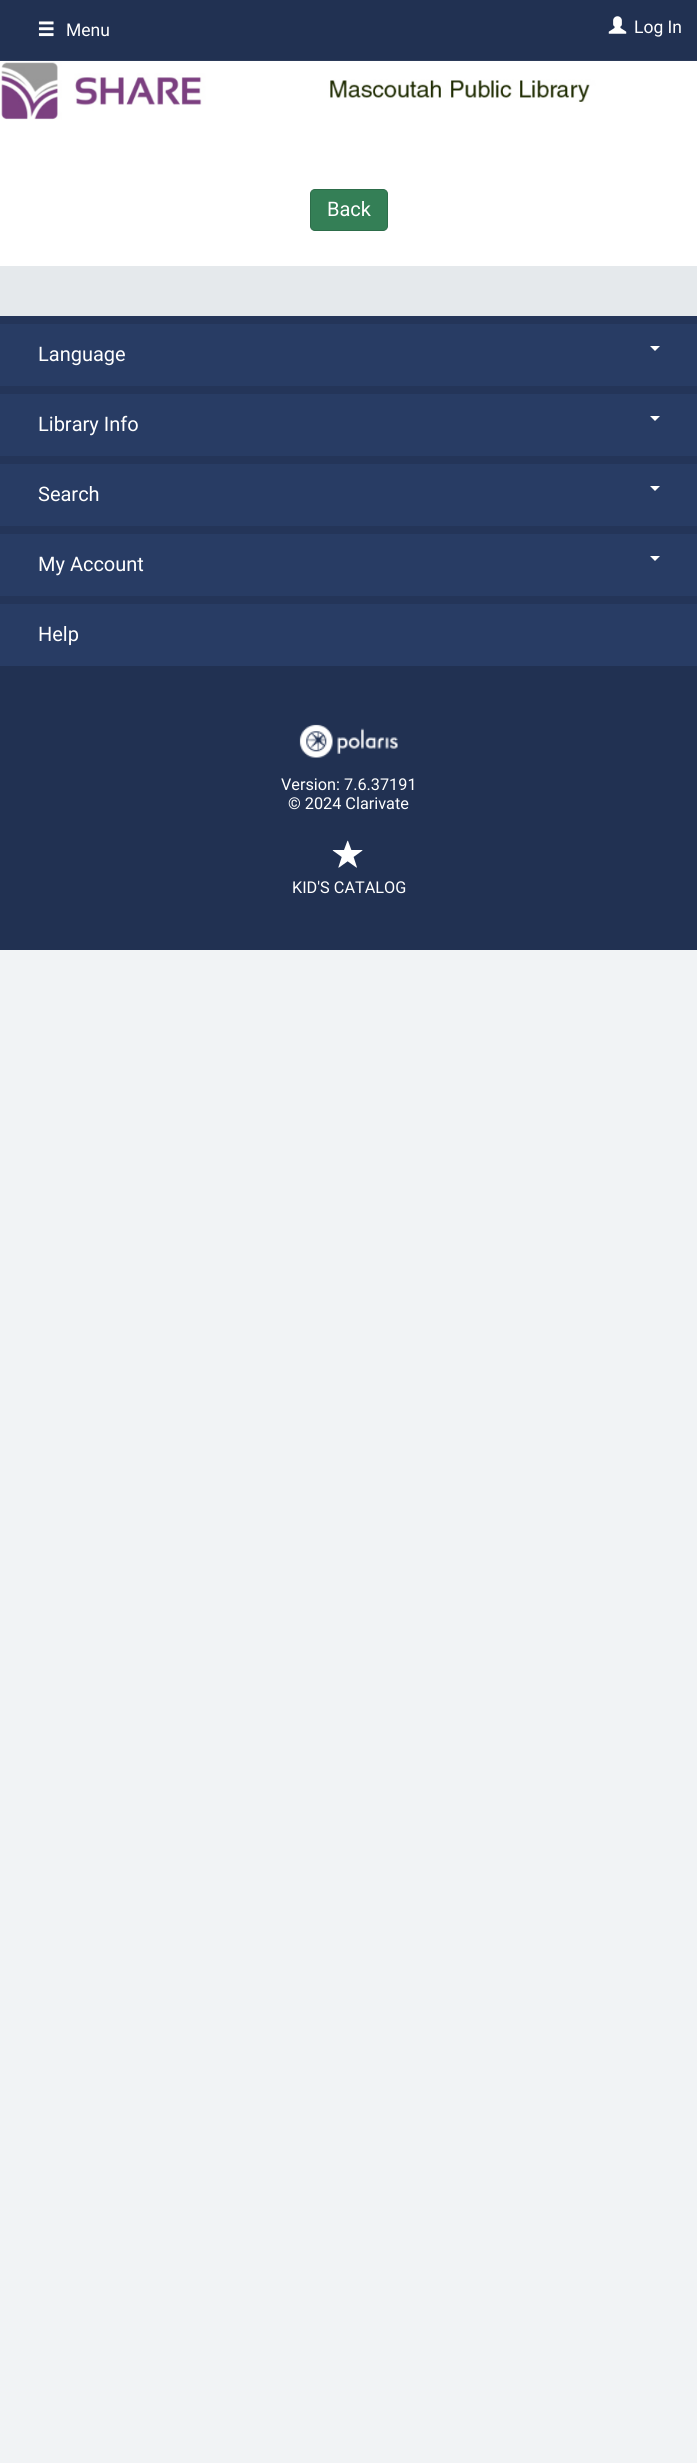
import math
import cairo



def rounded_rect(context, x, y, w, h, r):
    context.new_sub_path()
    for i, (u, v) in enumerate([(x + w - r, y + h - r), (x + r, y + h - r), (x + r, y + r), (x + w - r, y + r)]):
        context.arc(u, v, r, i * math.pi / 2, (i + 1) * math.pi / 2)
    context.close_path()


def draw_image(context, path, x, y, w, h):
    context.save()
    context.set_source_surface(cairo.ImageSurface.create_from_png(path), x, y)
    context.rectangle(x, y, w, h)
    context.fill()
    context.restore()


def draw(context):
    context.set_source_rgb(241 / 255, 243 / 255, 245 / 255)
    context.paint()
    context.set_source_rgb(33 / 255, 49 / 255, 82 / 255)
    context.rectangle(0, 0, 697, 61)
    context.fill()
    draw_image(context, "images/1.png", 38, 21, 16, 16)
    draw_image(context, "images/2.png", 608, 16, 19, 18)
    context.set_source_rgb(1, 1, 1)
    context.rectangle(0, 61, 697, 205)
    context.fill()
    draw_image(context, "images/3.png", 0, 60, 697, 60)
    context.set_source_rgb(229 / 255, 233 / 255, 236 / 255)
    context.rectangle(0, 266, 697, 50)
    context.fill()
    context.set_source_rgb(52 / 255, 127 / 255, 86 / 255)
    rounded_rect(context, 310.5, 189.5, 77, 41, 4.5)
    context.fill_preserve()
    context.set_source_rgb(45 / 255, 109 / 255, 74 / 255)
    context.set_line_width(1)
    context.stroke()
    context.set_source_rgb(36 / 255, 53 / 255, 89 / 255)
    context.rectangle(0, 316, 697, 288)
    context.fill()
    context.set_source_rgb(40 / 255, 60 / 255, 100 / 255)
    context.rectangle(0, 324, 697, 62)
    context.fill()
    context.set_source_rgb(1, 1, 1)
    context.new_path()
    context.move_to(650, 346)
    context.line_to(660, 346)
    context.line_to(655, 351)
    context.close_path()
    context.fill()
    context.set_source_rgb(40 / 255, 60 / 255, 100 / 255)
    context.rectangle(0, 394, 697, 62)
    context.fill()
    context.set_source_rgb(1, 1, 1)
    context.new_path()
    context.move_to(650, 416)
    context.line_to(660, 416)
    context.line_to(655, 421)
    context.close_path()
    context.fill()
    context.set_source_rgb(40 / 255, 60 / 255, 100 / 255)
    context.rectangle(0, 464, 697, 62)
    context.fill()
    context.set_source_rgb(1, 1, 1)
    context.new_path()
    context.move_to(650, 486)
    context.line_to(660, 486)
    context.line_to(655, 491)
    context.close_path()
    context.fill()
    context.set_source_rgb(40 / 255, 60 / 255, 100 / 255)
    context.rectangle(0, 534, 697, 62)
    context.fill()
    context.set_source_rgb(1, 1, 1)
    context.new_path()
    context.move_to(650, 556)
    context.line_to(660, 556)
    context.line_to(655, 561)
    context.close_path()
    context.fill()
    context.set_source_rgb(40 / 255, 60 / 255, 100 / 255)
    context.rectangle(0, 604, 697, 62)
    context.fill()
    context.set_source_rgb(33 / 255, 49 / 255, 82 / 255)
    context.rectangle(0, 666, 697, 284)
    context.fill()
    draw_image(context, "images/4.png", 299, 724, 99, 34)
    draw_image(context, "images/5.png", 332, 840, 31, 28)
    context.select_font_face("Roboto")
    context.set_font_size(17.5)
    context.set_source_rgb(1, 1, 1)
    context.move_to(66, 36)
    context.show_text("Menu")
    context.move_to(634, 33)
    context.show_text("Log In")
    context.set_font_size(20)
    context.move_to(327, 216)
    context.show_text("Back")
    context.move_to(38, 361)
    context.show_text("Language")
    context.move_to(38, 431)
    context.show_text("Library Info")
    context.move_to(38, 501)
    context.show_text("Search")
    context.move_to(38, 571)
    context.show_text("My Account")
    context.move_to(38, 641)
    context.show_text("Help")
    context.set_font_size(16.25)
    context.move_to(281, 790)
    context.show_text("Version: 7.6.37191")
    context.move_to(288, 809)
    context.show_text("© 2024 Clarivate")
    context.move_to(292, 893)
    context.show_text("KID'S CATALOG")


surface = cairo.ImageSurface(cairo.Format.RGB24, 697, 2463)
context = cairo.Context(surface)
options = cairo.FontOptions()
options.set_hint_metrics(cairo.HintMetrics.OFF)
options.set_hint_style(cairo.HintStyle.NONE)
context.set_font_options(options)
context.set_miter_limit(4)
draw(context)
surface.write_to_png("out.png")
